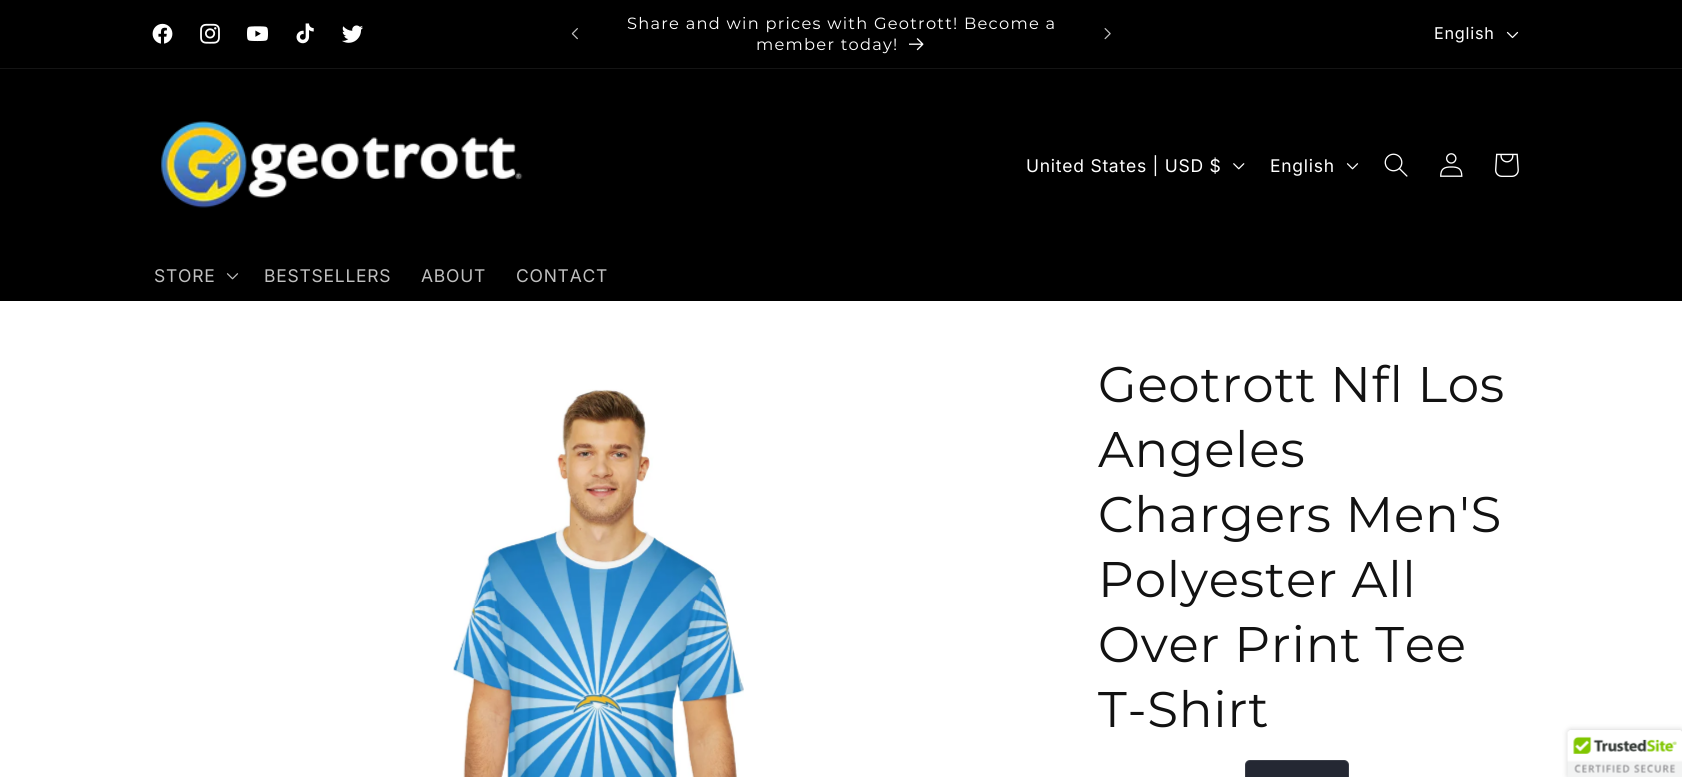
import math
import cairo



def draw_spaced(context, x, y, s, letter, word):
    context.move_to(x, y)
    for ch in s:
        context.show_text(ch)
        context.rel_move_to(letter + word * (ch == ' '), 0)


def rounded_rect(context, x, y, w, h, r):
    context.new_sub_path()
    for i, (u, v) in enumerate([(x + w - r, y + h - r), (x + r, y + h - r), (x + r, y + r), (x + w - r, y + r)]):
        context.arc(u, v, r, i * math.pi / 2, (i + 1) * math.pi / 2)
    context.close_path()


def draw_shadow(context, x, y, w, h, r, blur, alpha):
    context.push_group_with_content(cairo.Content.ALPHA)
    context.set_operator(cairo.Operator.SOURCE)
    for i in range(15, -16, -2):
        e = blur * i / 6
        if min(w, h) + 2 * e > 0:
            context.set_source_rgba(0, 0, 0, alpha * math.erfc((i - 1) / 8.5) / 2)
            rounded_rect(context, x - e, y - e, w + 2 * e, h + 2 * e, max(0, min(r + e + blur * .6, min(w, h) / 2 + e)))
            context.fill()
    context.mask(context.pop_group())


def draw_image(context, path, x, y, w, h):
    context.save()
    context.set_source_surface(cairo.ImageSurface.create_from_png(path), x, y)
    context.rectangle(x, y, w, h)
    context.fill()
    context.restore()


def draw(context):
    context.set_source_rgb(1, 1, 1)
    context.paint()
    context.set_source_rgb(0, 0, 0)
    context.rectangle(0, 0, 1682, 68)
    context.fill()
    context.set_source_rgb(20 / 255, 20 / 255, 20 / 255)
    context.rectangle(0, 68, 1682, 1)
    context.fill()
    draw_image(context, "images/1.png", 152, 23, 21, 21)
    draw_image(context, "images/2.png", 200, 23, 20, 21)
    draw_image(context, "images/3.png", 247, 26, 21, 16)
    draw_image(context, "images/4.png", 296, 23, 18, 21)
    draw_image(context, "images/5.png", 342, 25, 21, 18)
    draw_image(context, "images/6.png", 571, 28, 7, 12)
    draw_image(context, "images/7.png", 909, 38, 15, 13)
    draw_image(context, "images/8.png", 1104, 28, 7, 12)
    draw_image(context, "images/9.png", 1506, 31, 13, 8)
    context.set_source_rgb(0, 0, 0)
    context.rectangle(0, 69, 1682, 232)
    context.fill()
    draw_image(context, "images/10.png", 161, 121, 362, 87)
    draw_image(context, "images/11.png", 1233, 163, 12, 7)
    draw_image(context, "images/12.png", 1346, 163, 13, 7)
    draw_image(context, "images/13.png", 1384, 153, 24, 24)
    draw_image(context, "images/14.png", 1440, 153, 23, 24)
    draw_image(context, "images/15.png", 1495, 153, 24, 24)
    draw_image(context, "images/16.png", 226, 273, 13, 7)
    draw_image(context, "images/17.png", 453, 389, 291, 388)
    context.set_source_rgb(36 / 255, 40 / 255, 51 / 255)
    rounded_rect(context, 1245, 760, 104, 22, 5)
    context.fill()
    rounded_rect(context, 1245.5, 760.5, 103, 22, 4.5)
    context.set_source_rgba(1, 1, 1, 0.1)
    context.set_line_width(1)
    context.stroke()
    context.set_source_rgb(0, 0, 0)
    draw_shadow(context, 1568, 730, 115, 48, 2.5, 3, 0.2)
    draw_image(context, "images/18.png", 1567, 730, 115, 47)
    context.select_font_face("Montserrat")
    context.set_font_size(16.25)
    context.set_source_rgb(1, 1, 1)
    draw_spaced(context, 627, 29, "Share and win prices with Geotrott! Become a", 1.25, 0)
    draw_spaced(context, 756, 50, "member today!", 1.25, 0)
    context.select_font_face("Inter")
    draw_spaced(context, 1434, 39, "English", 0.75, 0)
    context.set_font_size(17.5)
    draw_spaced(context, 1026, 172, "United States | USD $", 0.75, 0)
    draw_spaced(context, 1270, 172, "English", 0.75, 0)
    context.set_source_rgb(191 / 255, 191 / 255, 191 / 255)
    draw_spaced(context, 154, 282, "STORE", 0.75, 0)
    draw_spaced(context, 264, 282, "BESTSELLERS", 0.75, 0)
    draw_spaced(context, 421, 282, "ABOUT", 0.75, 0)
    draw_spaced(context, 516, 282, "CONTACT", 0.75, 0)
    context.select_font_face("Montserrat")
    context.set_font_size(50)
    context.set_source_rgb(18 / 255, 18 / 255, 18 / 255)
    draw_spaced(context, 1098, 402, "Geotrott Nfl Los", 0.75, 0)
    draw_spaced(context, 1098, 467, "Angeles", 0.75, 0)
    draw_spaced(context, 1098, 532, "Chargers Men'S", 0.75, 0)
    draw_spaced(context, 1098, 597, "Polyester All", 0.75, 0)
    draw_spaced(context, 1098, 662, "Over Print Tee", 0.75, 0)
    draw_spaced(context, 1098, 727, "T-Shirt", 0.75, 0)


surface = cairo.ImageSurface(cairo.Format.RGB24, 1682, 777)
context = cairo.Context(surface)
options = cairo.FontOptions()
options.set_hint_metrics(cairo.HintMetrics.OFF)
options.set_hint_style(cairo.HintStyle.NONE)
context.set_font_options(options)
context.set_miter_limit(4)
draw(context)
surface.write_to_png("out.png")
